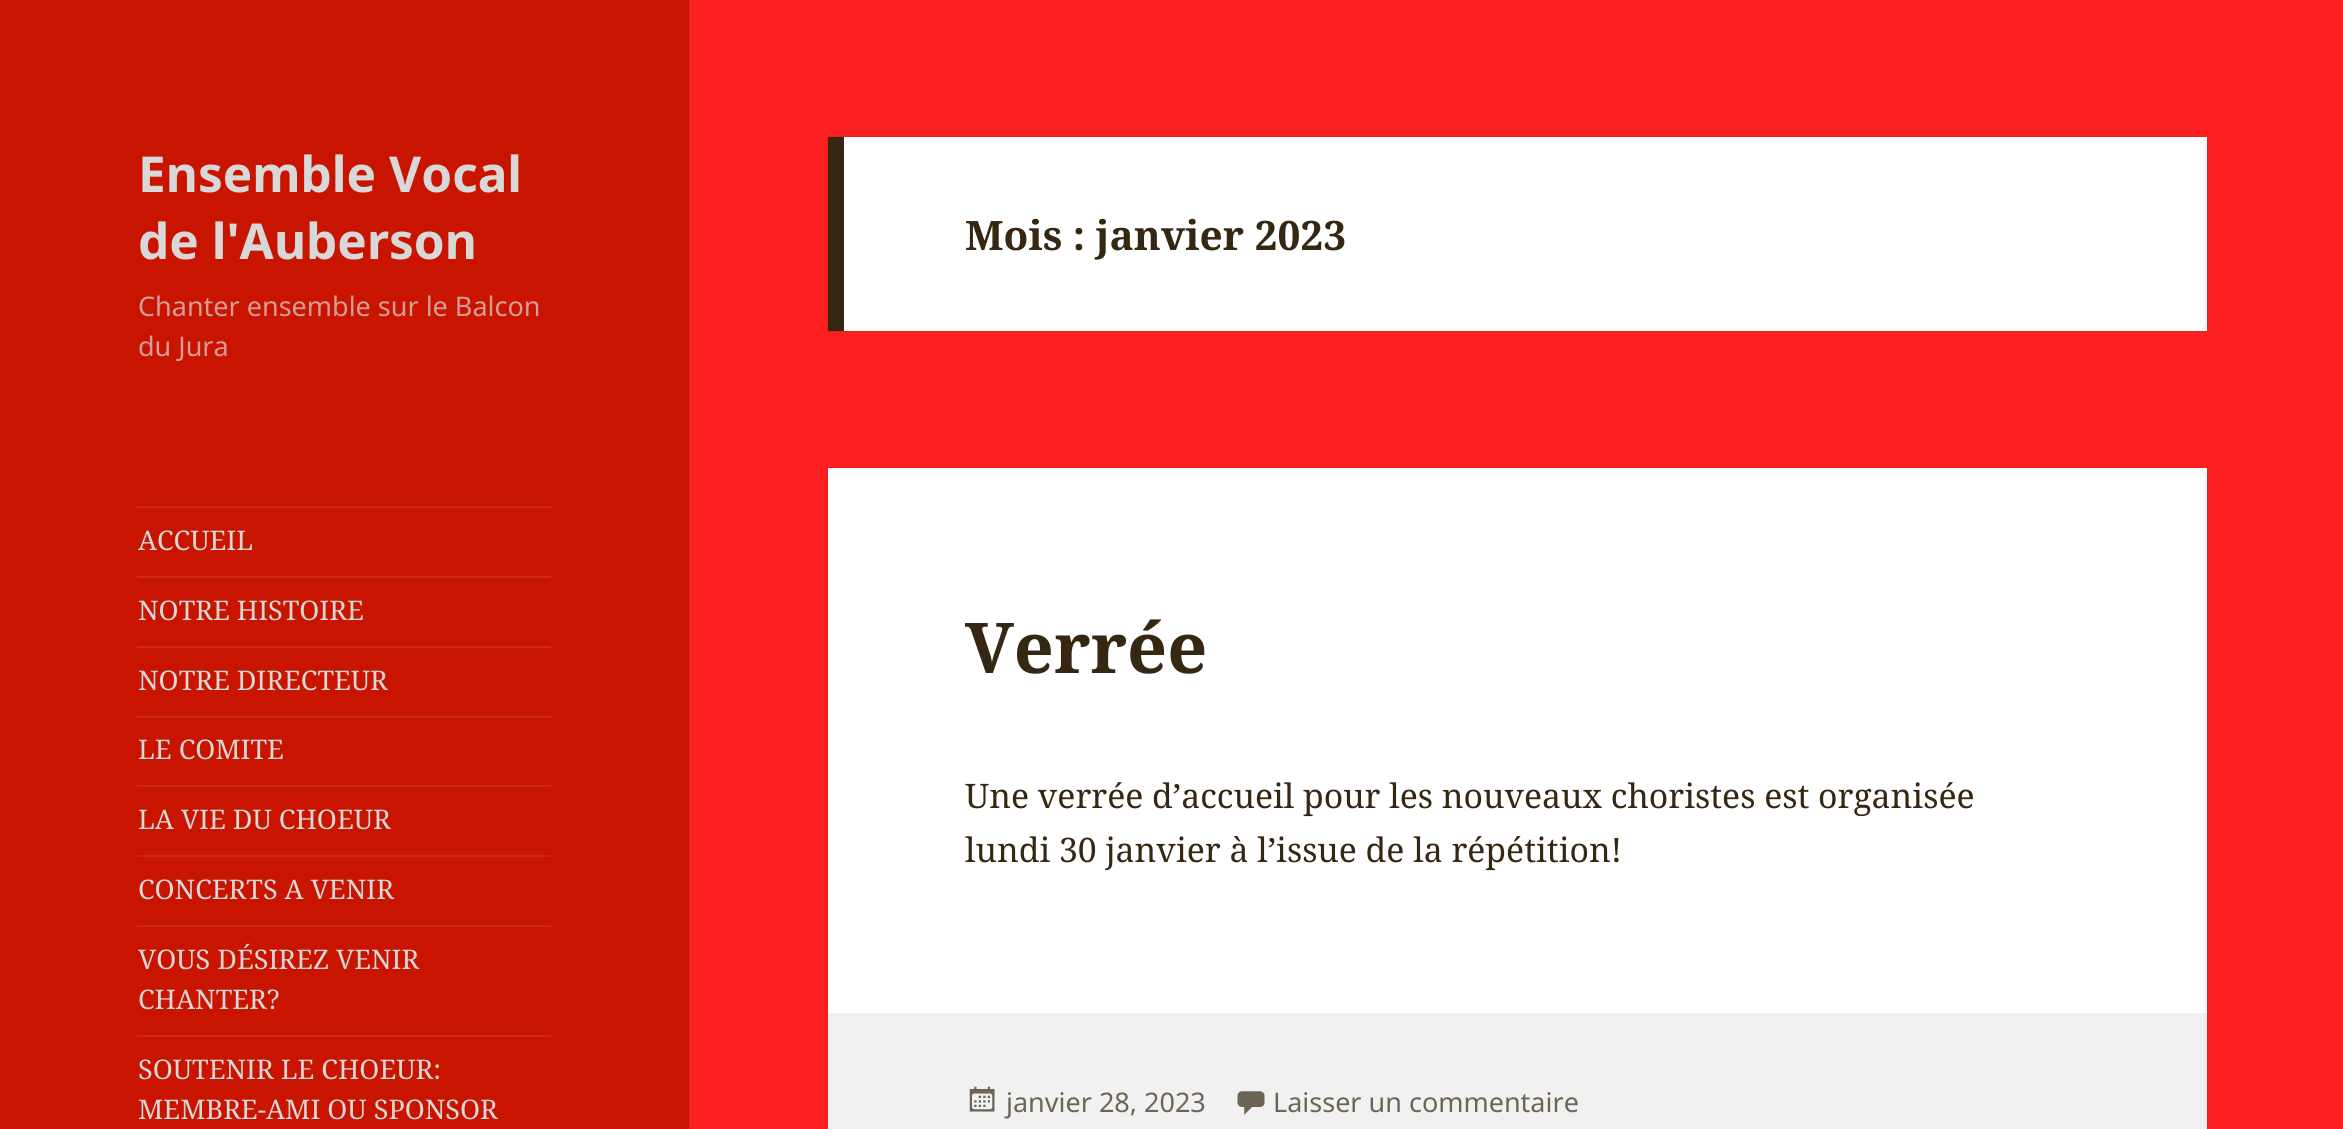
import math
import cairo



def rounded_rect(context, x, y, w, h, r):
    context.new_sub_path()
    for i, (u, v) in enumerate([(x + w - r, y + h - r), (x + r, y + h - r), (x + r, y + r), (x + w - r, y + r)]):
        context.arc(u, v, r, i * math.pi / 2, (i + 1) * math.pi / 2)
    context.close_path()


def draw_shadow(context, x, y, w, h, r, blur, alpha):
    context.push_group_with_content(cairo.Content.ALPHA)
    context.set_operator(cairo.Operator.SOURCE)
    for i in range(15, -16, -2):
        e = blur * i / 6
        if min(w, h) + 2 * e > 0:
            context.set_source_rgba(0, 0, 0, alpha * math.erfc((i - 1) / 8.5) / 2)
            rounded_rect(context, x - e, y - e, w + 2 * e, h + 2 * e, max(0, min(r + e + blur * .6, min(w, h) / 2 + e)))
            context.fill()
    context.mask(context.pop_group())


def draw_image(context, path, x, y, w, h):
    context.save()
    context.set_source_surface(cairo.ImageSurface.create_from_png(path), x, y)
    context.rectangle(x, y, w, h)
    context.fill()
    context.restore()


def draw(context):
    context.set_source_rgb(252 / 255, 32 / 255, 32 / 255)
    context.paint()
    context.set_source_rgb(0, 0, 0)
    draw_shadow(context, 0, 0, 689, 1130, 0, 1, 0.15)
    context.set_source_rgb(201 / 255, 20 / 255, 0)
    context.rectangle(0, 0, 689, 1129)
    context.fill()
    context.set_source_rgb(203 / 255, 40 / 255, 22 / 255)
    context.rectangle(137, 506, 414, 2)
    context.fill()
    context.rectangle(137, 576, 414, 2)
    context.fill()
    context.rectangle(137, 646, 414, 2)
    context.fill()
    context.rectangle(137, 716, 414, 2)
    context.fill()
    context.rectangle(137, 785, 414, 2)
    context.fill()
    context.rectangle(137, 855, 414, 2)
    context.fill()
    context.rectangle(137, 925, 414, 2)
    context.fill()
    context.rectangle(137, 1035, 414, 2)
    context.fill()
    context.set_source_rgb(0, 0, 0)
    draw_shadow(context, 828, 137, 1379, 194, 0, 1, 0.15)
    context.set_source_rgb(1, 1, 1)
    context.rectangle(844, 137, 1363, 194)
    context.fill()
    context.set_source_rgb(53 / 255, 39 / 255, 18 / 255)
    context.rectangle(828, 137, 16, 194)
    context.fill()
    context.set_source_rgb(0, 0, 0)
    draw_shadow(context, 828, 468, 1379, 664, 0, 1, 0.15)
    context.set_source_rgb(1, 1, 1)
    context.rectangle(828, 468, 1379, 545)
    context.fill()
    context.set_source_rgb(241 / 255, 241 / 255, 241 / 255)
    context.rectangle(828, 1013, 1379, 116)
    context.fill()
    draw_image(context, "images/1.png", 969, 1086, 26, 26)
    draw_image(context, "images/2.png", 1237, 1091, 28, 24)
    context.select_font_face("Noto Sans", cairo.FontSlant.NORMAL, cairo.FontWeight.BOLD)
    context.set_font_size(49.5)
    context.set_source_rgb(216 / 255, 216 / 255, 216 / 255)
    context.move_to(138, 192)
    context.show_text("Ensemble Vocal")
    context.move_to(138, 259)
    context.show_text("de l'Auberson")
    context.select_font_face("Noto Sans")
    context.set_font_size(27)
    context.set_source_rgb(212 / 255, 157 / 255, 151 / 255)
    context.move_to(138, 316)
    context.show_text("Chanter ensemble sur le Balcon")
    context.move_to(138, 356)
    context.show_text("du Jura")
    context.select_font_face("Noto Serif")
    context.set_source_rgb(216 / 255, 216 / 255, 216 / 255)
    context.move_to(138, 550)
    context.show_text("ACCUEIL")
    context.move_to(138, 620)
    context.show_text("NOTRE HISTOIRE")
    context.move_to(138, 690)
    context.show_text("NOTRE DIRECTEUR")
    context.move_to(138, 759)
    context.show_text("LE COMITE")
    context.move_to(138, 829)
    context.show_text("LA VIE DU CHOEUR")
    context.move_to(138, 899)
    context.show_text("CONCERTS A VENIR")
    context.move_to(138, 969)
    context.show_text("VOUS DÉSIREZ VENIR")
    context.move_to(138, 1009)
    context.show_text("CHANTER?")
    context.move_to(138, 1079)
    context.show_text("SOUTENIR LE CHOEUR:")
    context.move_to(138, 1119)
    context.show_text("MEMBRE-AMI OU SPONSOR")
    context.select_font_face("Noto Serif", cairo.FontSlant.NORMAL, cairo.FontWeight.BOLD)
    context.set_font_size(40.5)
    context.set_source_rgb(53 / 255, 39 / 255, 18 / 255)
    context.move_to(965, 250)
    context.show_text("Mois : janvier 2023")
    context.set_font_size(70)
    context.move_to(965, 673)
    context.show_text("Verrée")
    context.select_font_face("Noto Serif")
    context.set_font_size(33.75)
    context.move_to(965, 808)
    context.show_text("Une verrée d’accueil pour les nouveaux choristes est organisée")
    context.move_to(965, 862)
    context.show_text("lundi 30 janvier à l’issue de la répétition!")
    context.select_font_face("Noto Sans")
    context.set_font_size(27)
    context.set_source_rgb(109 / 255, 100 / 255, 85 / 255)
    context.move_to(1006, 1112)
    context.show_text("janvier 28, 2023")
    context.move_to(1273, 1112)
    context.show_text("Laisser un commentaire")


surface = cairo.ImageSurface(cairo.Format.RGB24, 2343, 1129)
context = cairo.Context(surface)
options = cairo.FontOptions()
options.set_hint_metrics(cairo.HintMetrics.OFF)
options.set_hint_style(cairo.HintStyle.NONE)
context.set_font_options(options)
context.set_miter_limit(4)
draw(context)
surface.write_to_png("out.png")
